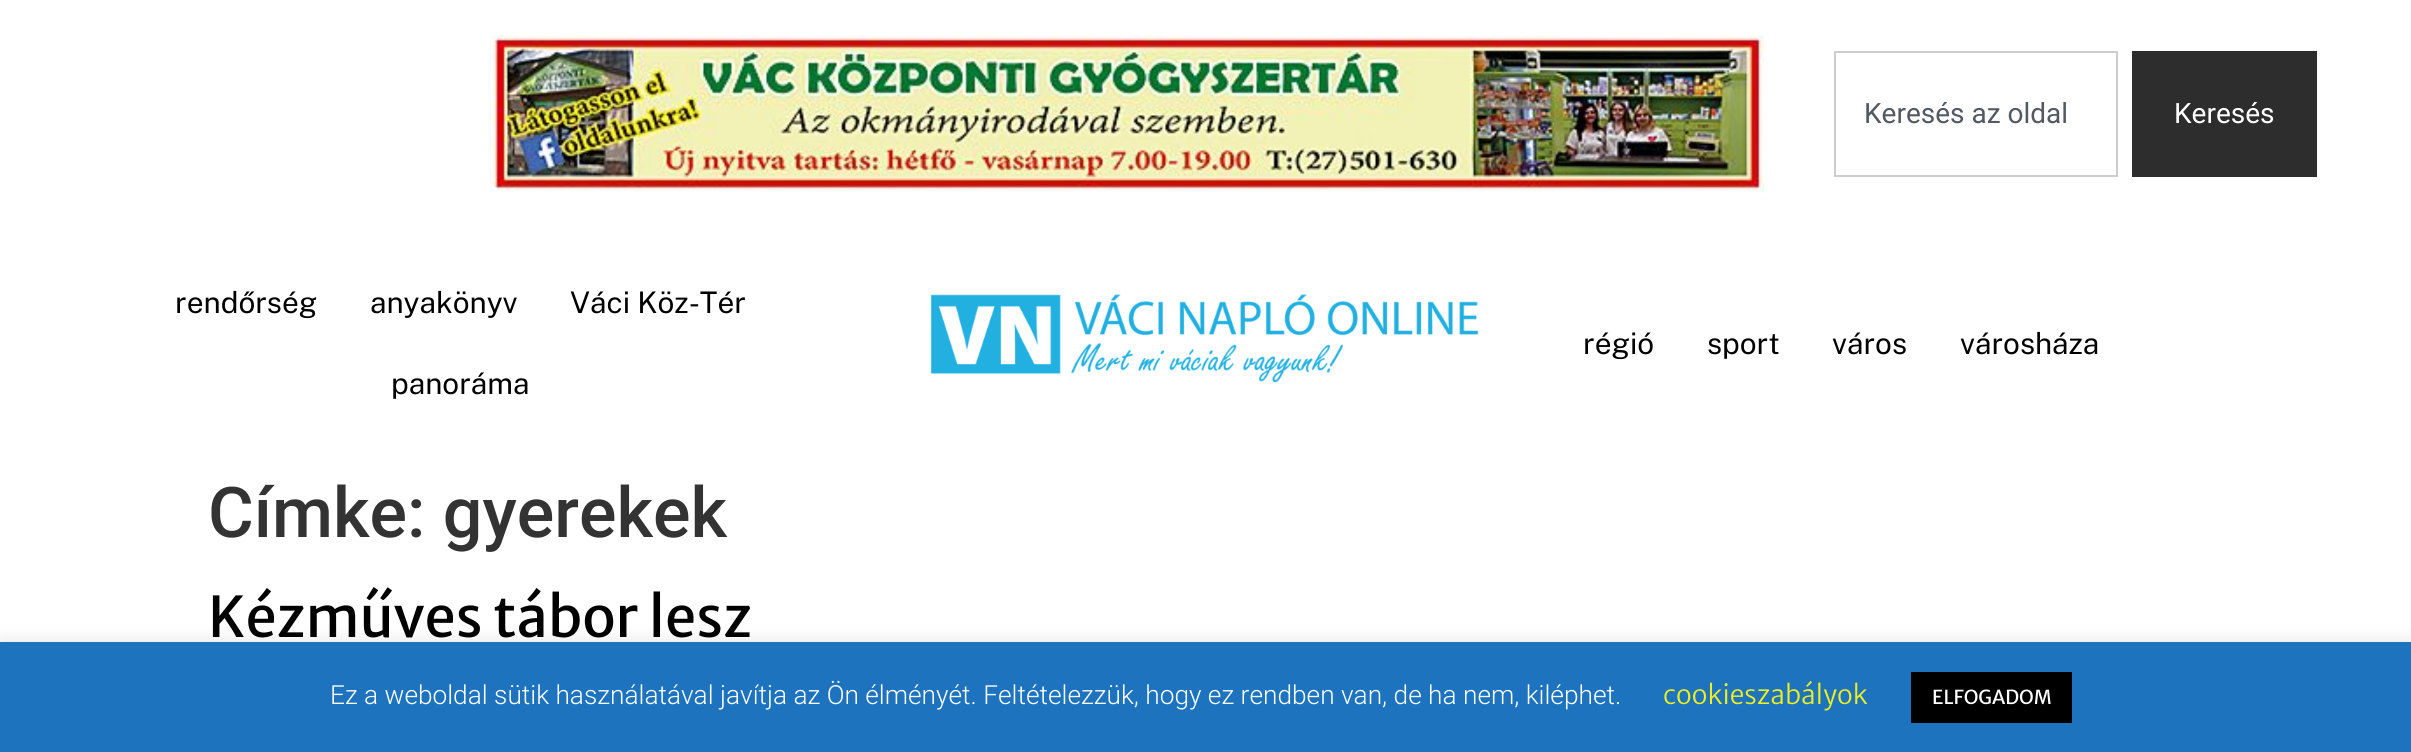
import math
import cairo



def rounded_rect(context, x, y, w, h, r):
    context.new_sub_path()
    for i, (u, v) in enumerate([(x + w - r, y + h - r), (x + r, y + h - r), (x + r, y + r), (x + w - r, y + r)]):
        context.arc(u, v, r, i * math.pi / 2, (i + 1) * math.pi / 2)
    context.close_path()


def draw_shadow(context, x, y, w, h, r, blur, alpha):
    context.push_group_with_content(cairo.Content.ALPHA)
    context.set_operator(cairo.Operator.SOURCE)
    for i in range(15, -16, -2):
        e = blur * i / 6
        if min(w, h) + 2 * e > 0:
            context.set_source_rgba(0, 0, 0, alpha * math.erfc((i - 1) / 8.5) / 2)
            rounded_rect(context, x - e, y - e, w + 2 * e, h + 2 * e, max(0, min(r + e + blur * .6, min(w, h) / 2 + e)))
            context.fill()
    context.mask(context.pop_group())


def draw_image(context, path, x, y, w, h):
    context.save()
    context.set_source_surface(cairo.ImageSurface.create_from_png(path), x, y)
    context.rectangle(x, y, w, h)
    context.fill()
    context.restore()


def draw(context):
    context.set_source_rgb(1, 1, 1)
    context.paint()
    draw_image(context, "images/1.png", 490, 35, 1274, 158)
    context.rectangle(1835, 52, 282, 124)
    context.set_source_rgb(205 / 255, 205 / 255, 205 / 255)
    context.stroke()
    context.set_source_rgb(45 / 255, 45 / 255, 45 / 255)
    context.rectangle(2132, 51, 185, 126)
    context.fill()
    draw_image(context, "images/2.png", 930, 294, 549, 89)
    context.set_source_rgb(172 / 255, 171 / 255, 171 / 255)
    draw_shadow(context, 0, 641, 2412, 110, 0, 9, 0.3)
    context.set_source_rgb(30 / 255, 115 / 255, 190 / 255)
    context.rectangle(0, 642, 2411, 110)
    context.fill()
    context.set_source_rgb(0, 0, 0)
    context.rectangle(1911, 672, 161, 51)
    context.fill()
    context.select_font_face("Roboto")
    context.set_font_size(28)
    context.set_source_rgb(81 / 255, 89 / 255, 98 / 255)
    context.move_to(1864, 123)
    context.show_text("Keresés az oldal")
    context.set_source_rgb(1, 1, 1)
    context.move_to(2174, 123)
    context.show_text("Keresés")
    context.select_font_face("Public Sans")
    context.set_font_size(29.75)
    context.set_source_rgb(0, 0, 0)
    context.move_to(175, 313)
    context.show_text("rendőrség")
    context.move_to(370, 313)
    context.show_text("anyakönyv")
    context.move_to(570, 313)
    context.show_text("Váci Köz-Tér")
    context.move_to(391, 394)
    context.show_text("panoráma")
    context.move_to(1583, 354)
    context.show_text("régió")
    context.move_to(1707, 354)
    context.show_text("sport")
    context.move_to(1832, 354)
    context.show_text("város")
    context.move_to(1960, 354)
    context.show_text("városháza")
    context.select_font_face("Roboto Medium")
    context.set_font_size(70)
    context.set_source_rgb(51 / 255, 51 / 255, 51 / 255)
    context.move_to(208, 537)
    context.show_text("Címke: gyerekek")
    context.select_font_face("Merriweather Sans")
    context.set_font_size(56)
    context.set_source_rgb(0, 0, 0)
    context.move_to(208, 637)
    context.show_text("Kézműves tábor lesz")
    context.select_font_face("Roboto Light")
    context.set_font_size(26.25)
    context.set_source_rgb(1, 1, 1)
    context.move_to(330, 704)
    context.show_text("Ez a weboldal sütik használatával javítja az Ön élményét. Feltételezzük, hogy ez rendben van, de ha nem, kiléphet.")
    context.select_font_face("Merriweather Sans Light")
    context.set_source_rgb(238 / 255, 238 / 255, 34 / 255)
    context.move_to(1663, 704)
    context.show_text("cookieszabályok")
    context.select_font_face("Merriweather Sans")
    context.set_font_size(19.25)
    context.set_source_rgb(1, 1, 1)
    context.move_to(1932, 704)
    context.show_text("ELFOGADOM")


surface = cairo.ImageSurface(cairo.Format.RGB24, 2411, 752)
context = cairo.Context(surface)
options = cairo.FontOptions()
options.set_hint_metrics(cairo.HintMetrics.OFF)
options.set_hint_style(cairo.HintStyle.NONE)
context.set_font_options(options)
context.set_miter_limit(4)
draw(context)
surface.write_to_png("out.png")
